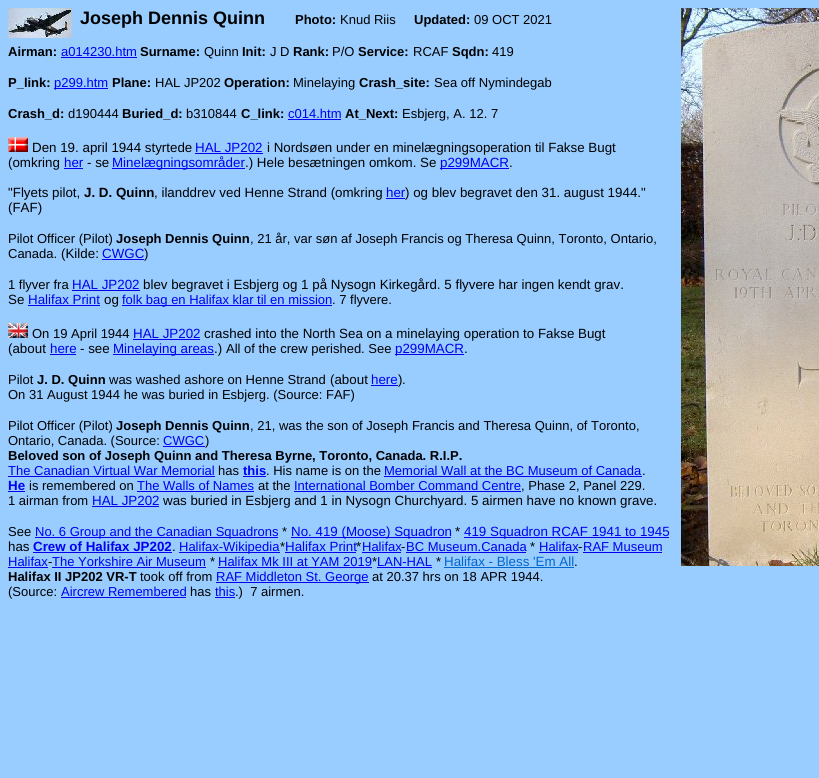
import math
import cairo



def draw_image(context, path, x, y, w, h):
    context.save()
    context.set_source_surface(cairo.ImageSurface.create_from_png(path), x, y)
    context.rectangle(x, y, w, h)
    context.fill()
    context.restore()


def draw(context):
    context.set_source_rgb(153 / 255, 204 / 255, 1)
    context.paint()
    draw_image(context, "images/1.png", 8, 8, 64, 30)
    draw_image(context, "images/2.png", 681, 8, 138, 558)
    context.set_source_rgb(0, 0, 238 / 255)
    context.rectangle(61, 57, 76, 1)
    context.fill()
    context.rectangle(54, 88, 54, 1)
    context.fill()
    context.rectangle(288, 119, 53, 1)
    context.fill()
    draw_image(context, "images/3.png", 8, 137, 20, 15)
    context.rectangle(195, 153, 68, 1)
    context.fill()
    context.rectangle(64, 168, 19, 1)
    context.fill()
    context.rectangle(112, 168, 133, 1)
    context.fill()
    context.rectangle(440, 168, 69, 1)
    context.fill()
    context.rectangle(386, 198, 19, 1)
    context.fill()
    context.rectangle(102, 259, 42, 1)
    context.fill()
    context.rectangle(72, 290, 68, 1)
    context.fill()
    context.rectangle(28, 305, 72, 1)
    context.fill()
    context.rectangle(122, 305, 210, 1)
    context.fill()
    draw_image(context, "images/4.png", 8, 323, 20, 15)
    context.rectangle(133, 339, 67, 1)
    context.fill()
    context.rectangle(50, 354, 26, 1)
    context.fill()
    context.rectangle(113, 354, 101, 1)
    context.fill()
    context.rectangle(395, 354, 69, 1)
    context.fill()
    context.rectangle(371, 385, 27, 1)
    context.fill()
    context.rectangle(163, 446, 42, 1)
    context.fill()
    context.rectangle(8, 476, 207, 1)
    context.fill()
    context.rectangle(243, 476, 23, 1)
    context.fill()
    context.rectangle(384, 476, 258, 1)
    context.fill()
    context.rectangle(8, 491, 17, 1)
    context.fill()
    context.rectangle(137, 491, 117, 1)
    context.fill()
    context.rectangle(294, 491, 227, 1)
    context.fill()
    context.rectangle(92, 506, 67, 1)
    context.fill()
    context.rectangle(35, 537, 243, 1)
    context.fill()
    context.rectangle(291, 537, 160, 1)
    context.fill()
    context.rectangle(464, 537, 205, 1)
    context.fill()
    context.rectangle(285, 552, 71, 1)
    context.fill()
    context.rectangle(362, 552, 39, 1)
    context.fill()
    context.rectangle(406, 552, 120, 1)
    context.fill()
    context.rectangle(539, 552, 39, 1)
    context.fill()
    context.rectangle(583, 552, 79, 1)
    context.fill()
    context.rectangle(33, 552, 139, 1)
    context.fill()
    context.rectangle(179, 552, 101, 1)
    context.fill()
    context.rectangle(218, 567, 154, 1)
    context.fill()
    context.rectangle(377, 567, 55, 1)
    context.fill()
    context.rectangle(8, 567, 40, 1)
    context.fill()
    context.rectangle(52, 567, 154, 1)
    context.fill()
    context.set_source_rgb(0, 102 / 255, 204 / 255)
    context.rectangle(444, 567, 130, 1)
    context.fill()
    context.set_source_rgb(0, 0, 238 / 255)
    context.rectangle(216, 582, 153, 1)
    context.fill()
    context.rectangle(61, 597, 125, 1)
    context.fill()
    context.rectangle(215, 597, 20, 1)
    context.fill()
    context.select_font_face("Liberation Sans", cairo.FontSlant.NORMAL, cairo.FontWeight.BOLD)
    context.set_font_size(18)
    context.set_source_rgb(0, 0, 0)
    context.move_to(80, 24)
    context.show_text("Joseph Dennis Quinn")
    context.set_font_size(13)
    context.move_to(295, 24)
    context.show_text("Photo:")
    context.select_font_face("Liberation Sans")
    context.move_to(340, 24)
    context.show_text("Knud Riis")
    context.select_font_face("Liberation Sans", cairo.FontSlant.NORMAL, cairo.FontWeight.BOLD)
    context.move_to(414, 24)
    context.show_text("Updated:")
    context.select_font_face("Liberation Sans")
    context.move_to(474, 24)
    context.show_text("09 OCT 2021")
    context.select_font_face("Liberation Sans", cairo.FontSlant.NORMAL, cairo.FontWeight.BOLD)
    context.move_to(8, 56)
    context.show_text("Airman:")
    context.select_font_face("Liberation Sans")
    context.set_source_rgb(0, 0, 238 / 255)
    context.move_to(61, 56)
    context.show_text("a014230.htm")
    context.select_font_face("Liberation Sans", cairo.FontSlant.NORMAL, cairo.FontWeight.BOLD)
    context.set_source_rgb(0, 0, 0)
    context.move_to(140, 56)
    context.show_text("Surname:")
    context.select_font_face("Liberation Sans")
    context.move_to(204, 56)
    context.show_text("Quinn")
    context.select_font_face("Liberation Sans", cairo.FontSlant.NORMAL, cairo.FontWeight.BOLD)
    context.move_to(242, 56)
    context.show_text("Init:")
    context.select_font_face("Liberation Sans")
    context.move_to(270, 56)
    context.show_text("J D")
    context.select_font_face("Liberation Sans", cairo.FontSlant.NORMAL, cairo.FontWeight.BOLD)
    context.move_to(293, 56)
    context.show_text("Rank:")
    context.select_font_face("Liberation Sans")
    context.move_to(332, 56)
    context.show_text("P/O")
    context.select_font_face("Liberation Sans", cairo.FontSlant.NORMAL, cairo.FontWeight.BOLD)
    context.move_to(358, 56)
    context.show_text("Service:")
    context.select_font_face("Liberation Sans")
    context.move_to(413, 56)
    context.show_text("RCAF")
    context.select_font_face("Liberation Sans", cairo.FontSlant.NORMAL, cairo.FontWeight.BOLD)
    context.move_to(452, 56)
    context.show_text("Sqdn:")
    context.select_font_face("Liberation Sans")
    context.move_to(492, 56)
    context.show_text("419")
    context.select_font_face("Liberation Sans", cairo.FontSlant.NORMAL, cairo.FontWeight.BOLD)
    context.move_to(8, 87)
    context.show_text("P_link:")
    context.select_font_face("Liberation Sans")
    context.set_source_rgb(0, 0, 238 / 255)
    context.move_to(54, 87)
    context.show_text("p299.htm")
    context.select_font_face("Liberation Sans", cairo.FontSlant.NORMAL, cairo.FontWeight.BOLD)
    context.set_source_rgb(0, 0, 0)
    context.move_to(112, 87)
    context.show_text("Plane:")
    context.select_font_face("Liberation Sans")
    context.move_to(155, 87)
    context.show_text("HAL JP202")
    context.select_font_face("Liberation Sans", cairo.FontSlant.NORMAL, cairo.FontWeight.BOLD)
    context.move_to(224, 87)
    context.show_text("Operation:")
    context.select_font_face("Liberation Sans")
    context.move_to(293, 87)
    context.show_text("Minelaying")
    context.select_font_face("Liberation Sans", cairo.FontSlant.NORMAL, cairo.FontWeight.BOLD)
    context.move_to(359, 87)
    context.show_text("Crash_site:")
    context.select_font_face("Liberation Sans")
    context.move_to(434, 87)
    context.show_text("Sea off Nymindegab")
    context.select_font_face("Liberation Sans", cairo.FontSlant.NORMAL, cairo.FontWeight.BOLD)
    context.move_to(8, 118)
    context.show_text("Crash_d:")
    context.select_font_face("Liberation Sans")
    context.move_to(68, 118)
    context.show_text("d190444")
    context.select_font_face("Liberation Sans", cairo.FontSlant.NORMAL, cairo.FontWeight.BOLD)
    context.move_to(122, 118)
    context.show_text("Buried_d:")
    context.select_font_face("Liberation Sans")
    context.move_to(186, 118)
    context.show_text("b310844")
    context.select_font_face("Liberation Sans", cairo.FontSlant.NORMAL, cairo.FontWeight.BOLD)
    context.move_to(241, 118)
    context.show_text("C_link:")
    context.select_font_face("Liberation Sans")
    context.set_source_rgb(0, 0, 238 / 255)
    context.move_to(288, 118)
    context.show_text("c014.htm")
    context.select_font_face("Liberation Sans", cairo.FontSlant.NORMAL, cairo.FontWeight.BOLD)
    context.set_source_rgb(0, 0, 0)
    context.move_to(345, 118)
    context.show_text("At_Next:")
    context.select_font_face("Liberation Sans")
    context.move_to(402, 118)
    context.show_text("Esbjerg, A. 12. 7")
    context.set_font_size(13.35)
    context.move_to(32, 152)
    context.show_text("Den 19. april 1944 styrtede")
    context.set_source_rgb(0, 0, 238 / 255)
    context.move_to(195, 152)
    context.show_text("HAL JP202")
    context.set_source_rgb(0, 0, 0)
    context.move_to(267, 152)
    context.show_text("i Nordsøen under en minelægningsoperation til Fakse Bugt")
    context.move_to(8, 167)
    context.show_text("(omkring")
    context.set_source_rgb(0, 0, 238 / 255)
    context.move_to(64, 167)
    context.show_text("her")
    context.set_source_rgb(0, 0, 0)
    context.move_to(87, 167)
    context.show_text("- se")
    context.set_source_rgb(0, 0, 238 / 255)
    context.move_to(112, 167)
    context.show_text("Minelægningsområder")
    context.set_source_rgb(0, 0, 0)
    context.move_to(245, 167)
    context.show_text(".) Hele besætningen omkom. Se")
    context.set_source_rgb(0, 0, 238 / 255)
    context.move_to(440, 167)
    context.show_text("p299MACR")
    context.set_source_rgb(0, 0, 0)
    context.move_to(509, 167)
    context.show_text(".")
    context.move_to(8, 197)
    context.show_text("\"Flyets pilot,")
    context.select_font_face("Liberation Sans", cairo.FontSlant.NORMAL, cairo.FontWeight.BOLD)
    context.move_to(84, 197)
    context.show_text("J. D. Quinn")
    context.select_font_face("Liberation Sans")
    context.move_to(154, 197)
    context.show_text(", ilanddrev ved Henne Strand (omkring")
    context.set_source_rgb(0, 0, 238 / 255)
    context.move_to(386, 197)
    context.show_text("her")
    context.set_source_rgb(0, 0, 0)
    context.move_to(405, 197)
    context.show_text(") og blev begravet den 31. august 1944.\"")
    context.move_to(8, 212)
    context.show_text("(FAF)")
    context.set_font_size(13)
    context.move_to(8, 243)
    context.show_text("Pilot Officer (Pilot)")
    context.select_font_face("Liberation Sans", cairo.FontSlant.NORMAL, cairo.FontWeight.BOLD)
    context.move_to(116, 243)
    context.show_text("Joseph Dennis Quinn")
    context.select_font_face("Liberation Sans")
    context.move_to(250, 243)
    context.show_text(", 21 år, var søn af Joseph Francis og Theresa Quinn, Toronto, Ontario,")
    context.move_to(8, 258)
    context.show_text("Canada.")
    context.set_font_size(13.35)
    context.move_to(61, 258)
    context.show_text("(Kilde:")
    context.set_source_rgb(0, 0, 238 / 255)
    context.move_to(102, 258)
    context.show_text("CWGC")
    context.set_source_rgb(0, 0, 0)
    context.move_to(144, 258)
    context.show_text(")")
    context.set_font_size(13)
    context.move_to(8, 289)
    context.show_text("1 flyver fra")
    context.set_font_size(13.35)
    context.set_source_rgb(0, 0, 238 / 255)
    context.move_to(72, 289)
    context.show_text("HAL JP202")
    context.set_source_rgb(0, 0, 0)
    context.move_to(143, 289)
    context.show_text("blev begravet i Esbjerg og 1 på Nysogn Kirkegård. 5 flyvere har ingen kendt grav.")
    context.move_to(8, 304)
    context.show_text("Se")
    context.set_source_rgb(0, 0, 238 / 255)
    context.move_to(28, 304)
    context.show_text("Halifax Print")
    context.set_source_rgb(0, 0, 0)
    context.move_to(104, 304)
    context.show_text("og")
    context.set_font_size(13)
    context.set_source_rgb(0, 0, 238 / 255)
    context.move_to(122, 304)
    context.show_text("folk bag en Halifax klar til en mission")
    context.set_source_rgb(0, 0, 0)
    context.move_to(332, 304)
    context.show_text(". 7 flyvere.")
    context.move_to(32, 338)
    context.show_text("On 19 April 1944")
    context.set_font_size(13.35)
    context.set_source_rgb(0, 0, 238 / 255)
    context.move_to(133, 338)
    context.show_text("HAL JP202")
    context.set_source_rgb(0, 0, 0)
    context.move_to(204, 338)
    context.show_text("crashed into the North Sea on a minelaying operation to Fakse Bugt")
    context.move_to(8, 353)
    context.show_text("(about")
    context.set_source_rgb(0, 0, 238 / 255)
    context.move_to(50, 353)
    context.show_text("here")
    context.set_source_rgb(0, 0, 0)
    context.move_to(80, 353)
    context.show_text("- see")
    context.set_source_rgb(0, 0, 238 / 255)
    context.move_to(113, 353)
    context.show_text("Minelaying areas")
    context.set_source_rgb(0, 0, 0)
    context.move_to(214, 353)
    context.show_text(".)")
    context.set_font_size(13)
    context.move_to(226, 353)
    context.show_text("All of the crew perished. See")
    context.set_font_size(13.35)
    context.set_source_rgb(0, 0, 238 / 255)
    context.move_to(395, 353)
    context.show_text("p299MACR")
    context.set_source_rgb(0, 0, 0)
    context.move_to(464, 353)
    context.show_text(".")
    context.set_font_size(13)
    context.move_to(8, 384)
    context.show_text("Pilot")
    context.select_font_face("Liberation Sans", cairo.FontSlant.NORMAL, cairo.FontWeight.BOLD)
    context.move_to(37, 384)
    context.show_text("J. D. Quinn")
    context.select_font_face("Liberation Sans")
    context.move_to(109, 384)
    context.show_text("was washed ashore on Henne Strand")
    context.set_font_size(13.35)
    context.move_to(330, 384)
    context.show_text("(about")
    context.set_source_rgb(0, 0, 238 / 255)
    context.move_to(371, 384)
    context.show_text("here")
    context.set_source_rgb(0, 0, 0)
    context.move_to(398, 384)
    context.show_text(")")
    context.set_font_size(13)
    context.move_to(402, 384)
    context.show_text(".")
    context.move_to(8, 399)
    context.show_text("On 31 August 1944 he was buried in Esbjerg. (Source: FAF)")
    context.move_to(8, 430)
    context.show_text("Pilot Officer (Pilot)")
    context.select_font_face("Liberation Sans", cairo.FontSlant.NORMAL, cairo.FontWeight.BOLD)
    context.move_to(116, 430)
    context.show_text("Joseph Dennis Quinn")
    context.select_font_face("Liberation Sans")
    context.move_to(250, 430)
    context.show_text(", 21, was the son of Joseph Francis and Theresa Quinn, of Toronto,")
    context.move_to(8, 445)
    context.show_text("Ontario, Canada. (Source:")
    context.set_source_rgb(0, 0, 238 / 255)
    context.move_to(163, 445)
    context.show_text("CWGC")
    context.set_source_rgb(0, 0, 0)
    context.move_to(205, 445)
    context.show_text(")")
    context.select_font_face("Liberation Sans", cairo.FontSlant.NORMAL, cairo.FontWeight.BOLD)
    context.move_to(8, 460)
    context.show_text("Beloved son of Joseph Quinn and Theresa Byrne, Toronto, Canada. R.I.P.")
    context.select_font_face("Liberation Sans")
    context.set_source_rgb(0, 0, 238 / 255)
    context.move_to(8, 475)
    context.show_text("The Canadian Virtual War Memorial")
    context.set_source_rgb(0, 0, 0)
    context.move_to(218, 475)
    context.show_text("has")
    context.select_font_face("Liberation Sans", cairo.FontSlant.NORMAL, cairo.FontWeight.BOLD)
    context.set_source_rgb(0, 0, 238 / 255)
    context.move_to(243, 475)
    context.show_text("this")
    context.select_font_face("Liberation Sans")
    context.set_source_rgb(0, 0, 0)
    context.move_to(266, 475)
    context.show_text(". His name is on the")
    context.set_source_rgb(0, 0, 238 / 255)
    context.move_to(384, 475)
    context.show_text("Memorial Wall at the BC Museum of Canada")
    context.set_source_rgb(0, 0, 0)
    context.move_to(642, 475)
    context.show_text(".")
    context.select_font_face("Liberation Sans", cairo.FontSlant.NORMAL, cairo.FontWeight.BOLD)
    context.set_font_size(13.35)
    context.set_source_rgb(0, 0, 238 / 255)
    context.move_to(8, 490)
    context.show_text("He")
    context.select_font_face("Liberation Sans")
    context.set_font_size(13)
    context.set_source_rgb(0, 0, 0)
    context.move_to(29, 490)
    context.show_text("is remembered on")
    context.set_source_rgb(0, 0, 238 / 255)
    context.move_to(137, 490)
    context.show_text("The Walls of Names")
    context.set_source_rgb(0, 0, 0)
    context.move_to(258, 490)
    context.show_text("at the")
    context.set_source_rgb(0, 0, 238 / 255)
    context.move_to(294, 490)
    context.show_text("International Bomber Command Centre")
    context.set_source_rgb(0, 0, 0)
    context.move_to(521, 490)
    context.show_text(", Phase 2, Panel 229.")
    context.move_to(8, 505)
    context.show_text("1 airman from")
    context.set_font_size(13.35)
    context.set_source_rgb(0, 0, 238 / 255)
    context.move_to(92, 505)
    context.show_text("HAL JP202")
    context.set_source_rgb(0, 0, 0)
    context.move_to(163, 505)
    context.show_text("was buried in Esbjerg and 1 in Nysogn Churchyard. 5 airmen have no known grave.")
    context.set_font_size(13)
    context.move_to(8, 536)
    context.show_text("See")
    context.set_source_rgb(0, 0, 238 / 255)
    context.move_to(35, 536)
    context.show_text("No. 6 Group and the Canadian Squadrons")
    context.set_source_rgb(0, 0, 0)
    context.move_to(282, 536)
    context.show_text("*")
    context.set_font_size(13.35)
    context.set_source_rgb(0, 0, 238 / 255)
    context.move_to(291, 536)
    context.show_text("No. 419 (Moose) Squadron")
    context.set_source_rgb(0, 0, 0)
    context.move_to(455, 536)
    context.show_text("*")
    context.set_source_rgb(0, 0, 238 / 255)
    context.move_to(464, 536)
    context.show_text("419 Squadron RCAF 1941 to 1945")
    context.set_source_rgb(0, 0, 0)
    context.move_to(8, 551)
    context.show_text("has")
    context.select_font_face("Liberation Sans", cairo.FontSlant.NORMAL, cairo.FontWeight.BOLD)
    context.set_source_rgb(0, 0, 238 / 255)
    context.move_to(33, 551)
    context.show_text("Crew of Halifax JP202")
    context.select_font_face("Liberation Sans")
    context.set_font_size(13)
    context.move_to(179, 551)
    context.show_text("Halifax-Wikipedia")
    context.set_source_rgb(0, 0, 0)
    context.move_to(280, 551)
    context.show_text("*")
    context.set_font_size(13.35)
    context.set_source_rgb(0, 0, 238 / 255)
    context.move_to(285, 551)
    context.show_text("Halifax Print")
    context.set_source_rgb(0, 0, 0)
    context.move_to(356, 551)
    context.show_text("*")
    context.set_font_size(13)
    context.set_source_rgb(0, 0, 238 / 255)
    context.move_to(362, 551)
    context.show_text("Halifax")
    context.set_source_rgb(0, 0, 0)
    context.move_to(401, 551)
    context.show_text("-")
    context.set_source_rgb(0, 0, 238 / 255)
    context.move_to(406, 551)
    context.show_text("BC Museum.Canada")
    context.set_source_rgb(0, 0, 0)
    context.move_to(530, 551)
    context.show_text("*")
    context.set_source_rgb(0, 0, 238 / 255)
    context.move_to(539, 551)
    context.show_text("Halifax")
    context.set_source_rgb(0, 0, 0)
    context.move_to(578, 551)
    context.show_text("-")
    context.set_source_rgb(0, 0, 238 / 255)
    context.move_to(583, 551)
    context.show_text("RAF Museum")
    context.set_font_size(13.35)
    context.set_source_rgb(0, 0, 0)
    context.move_to(172, 551)
    context.show_text(".")
    context.set_font_size(13)
    context.set_source_rgb(0, 0, 238 / 255)
    context.move_to(8, 566)
    context.show_text("Halifax")
    context.move_to(52, 566)
    context.show_text("The Yorkshire Air Museum")
    context.set_source_rgb(0, 0, 0)
    context.move_to(210, 566)
    context.show_text("*")
    context.set_source_rgb(0, 0, 238 / 255)
    context.move_to(218, 566)
    context.show_text("Halifax Mk III at YAM 2019")
    context.set_source_rgb(0, 0, 0)
    context.move_to(372, 566)
    context.show_text("*")
    context.set_source_rgb(0, 0, 238 / 255)
    context.move_to(377, 566)
    context.show_text("LAN-HAL")
    context.set_source_rgb(0, 0, 0)
    context.move_to(436, 566)
    context.show_text("*")
    context.set_font_size(13.35)
    context.set_source_rgb(0, 102 / 255, 204 / 255)
    context.move_to(444, 566)
    context.show_text("Halifax - Bless 'Em All")
    context.set_font_size(13)
    context.set_source_rgb(0, 0, 0)
    context.move_to(48, 566)
    context.show_text("-")
    context.set_font_size(13.35)
    context.move_to(574, 566)
    context.show_text(".")
    context.select_font_face("Liberation Sans", cairo.FontSlant.NORMAL, cairo.FontWeight.BOLD)
    context.set_font_size(13)
    context.move_to(8, 581)
    context.show_text("Halifax II JP202 VR-T")
    context.select_font_face("Liberation Sans")
    context.move_to(140, 581)
    context.show_text("took off from")
    context.set_source_rgb(0, 0, 238 / 255)
    context.move_to(216, 581)
    context.show_text("RAF Middleton St. George")
    context.set_source_rgb(0, 0, 0)
    context.move_to(372, 581)
    context.show_text("at 20.37 hrs on 18 APR 1944.")
    context.move_to(8, 596)
    context.show_text("(Source:")
    context.set_source_rgb(0, 0, 238 / 255)
    context.move_to(61, 596)
    context.show_text("Aircrew Remembered")
    context.set_source_rgb(0, 0, 0)
    context.move_to(190, 596)
    context.show_text("has")
    context.set_source_rgb(0, 0, 238 / 255)
    context.move_to(215, 596)
    context.show_text("this")
    context.set_source_rgb(0, 0, 0)
    context.move_to(235, 596)
    context.show_text(".)  7 airmen.")


surface = cairo.ImageSurface(cairo.Format.RGB24, 819, 778)
context = cairo.Context(surface)
options = cairo.FontOptions()
options.set_hint_metrics(cairo.HintMetrics.OFF)
options.set_hint_style(cairo.HintStyle.NONE)
context.set_font_options(options)
context.set_miter_limit(4)
draw(context)
surface.write_to_png("out.png")
